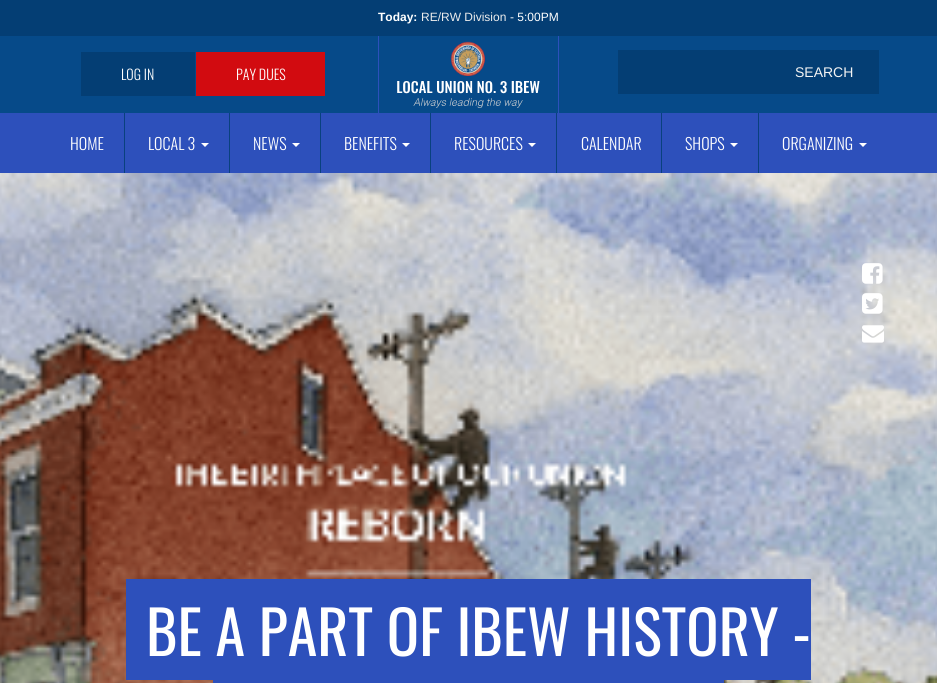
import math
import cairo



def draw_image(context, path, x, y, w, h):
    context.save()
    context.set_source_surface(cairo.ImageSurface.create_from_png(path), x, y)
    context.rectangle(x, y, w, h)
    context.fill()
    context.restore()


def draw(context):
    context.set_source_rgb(4 / 255, 62 / 255, 116 / 255)
    context.paint()
    context.set_source_rgb(6 / 255, 74 / 255, 137 / 255)
    context.rectangle(0, 36, 937, 77)
    context.fill()
    context.set_source_rgb(4 / 255, 62 / 255, 116 / 255)
    context.rectangle(81, 52, 114, 44)
    context.fill()
    context.set_source_rgb(210 / 255, 11 / 255, 16 / 255)
    context.rectangle(196, 52, 129, 44)
    context.fill()
    context.set_source_rgb(45 / 255, 80 / 255, 187 / 255)
    context.rectangle(558, 36, 1, 77)
    context.fill()
    context.rectangle(378, 36, 1, 77)
    context.fill()
    draw_image(context, "images/1.png", 397, 41, 143, 67)
    context.set_source_rgb(4 / 255, 62 / 255, 116 / 255)
    context.rectangle(618, 50, 261, 44)
    context.fill()
    context.set_source_rgb(45 / 255, 80 / 255, 187 / 255)
    context.rectangle(0, 113, 937, 60)
    context.fill()
    context.set_source_rgb(9 / 255, 65 / 255, 126 / 255)
    context.rectangle(124, 113, 1, 60)
    context.fill()
    context.rectangle(229, 113, 1, 60)
    context.fill()
    context.set_source_rgb(1, 1, 1)
    context.new_path()
    context.move_to(201, 143)
    context.line_to(209, 143)
    context.line_to(205, 147)
    context.close_path()
    context.fill()
    context.set_source_rgb(9 / 255, 65 / 255, 126 / 255)
    context.rectangle(320, 113, 1, 60)
    context.fill()
    context.set_source_rgb(1, 1, 1)
    context.new_path()
    context.move_to(292, 143)
    context.line_to(300, 143)
    context.line_to(296, 147)
    context.close_path()
    context.fill()
    context.set_source_rgb(9 / 255, 65 / 255, 126 / 255)
    context.rectangle(430, 113, 1, 60)
    context.fill()
    context.set_source_rgb(1, 1, 1)
    context.new_path()
    context.move_to(402, 143)
    context.line_to(410, 143)
    context.line_to(406, 147)
    context.close_path()
    context.fill()
    context.set_source_rgb(9 / 255, 65 / 255, 126 / 255)
    context.rectangle(556, 113, 1, 60)
    context.fill()
    context.set_source_rgb(1, 1, 1)
    context.new_path()
    context.move_to(528, 143)
    context.line_to(536, 143)
    context.line_to(532, 147)
    context.close_path()
    context.fill()
    context.set_source_rgb(9 / 255, 65 / 255, 126 / 255)
    context.rectangle(661, 113, 1, 60)
    context.fill()
    context.rectangle(758, 113, 1, 60)
    context.fill()
    context.set_source_rgb(1, 1, 1)
    context.new_path()
    context.move_to(730, 143)
    context.line_to(738, 143)
    context.line_to(734, 147)
    context.close_path()
    context.fill()
    context.new_path()
    context.move_to(859, 143)
    context.line_to(867, 143)
    context.line_to(863, 147)
    context.close_path()
    context.fill()
    draw_image(context, "images/2.png", 0, 173, 937, 510)
    draw_image(context, "images/3.png", 862, 263, 21, 21)
    draw_image(context, "images/4.png", 862, 293, 21, 21)
    draw_image(context, "images/5.png", 862, 325, 22, 18)
    context.set_source_rgb(45 / 255, 80 / 255, 187 / 255)
    context.rectangle(126, 579, 685, 101)
    context.fill()
    context.rectangle(213, 680, 511, 3)
    context.fill()
    context.select_font_face("Liberation Sans", cairo.FontSlant.NORMAL, cairo.FontWeight.BOLD)
    context.set_font_size(12)
    context.set_source_rgb(1, 1, 1)
    context.move_to(378, 21)
    context.show_text("Today:")
    context.select_font_face("Liberation Sans")
    context.set_source_rgb(236 / 255, 236 / 255, 236 / 255)
    context.move_to(421, 21)
    context.show_text("RE/RW Division")
    context.set_source_rgb(1, 1, 1)
    context.move_to(510, 21)
    context.show_text("- 5:00PM")
    context.select_font_face("Oswald Light")
    context.set_font_size(14)
    context.move_to(121, 80)
    context.show_text("LOG IN")
    context.move_to(236, 80)
    context.show_text("PAY DUES")
    context.select_font_face("Liberation Sans")
    context.set_source_rgb(243 / 255, 243 / 255, 243 / 255)
    context.move_to(795, 77)
    context.show_text("SEARCH")
    context.select_font_face("Oswald Light")
    context.set_font_size(16)
    context.set_source_rgb(1, 1, 1)
    context.move_to(70, 150)
    context.show_text("HOME")
    context.move_to(148, 150)
    context.show_text("LOCAL 3")
    context.move_to(253, 150)
    context.show_text("NEWS")
    context.move_to(344, 150)
    context.show_text("BENEFITS")
    context.move_to(454, 150)
    context.show_text("RESOURCES")
    context.move_to(581, 150)
    context.show_text("CALENDAR")
    context.move_to(685, 150)
    context.show_text("SHOPS")
    context.move_to(782, 150)
    context.show_text("ORGANIZING")
    context.select_font_face("Oswald")
    context.set_font_size(60)
    context.move_to(146, 656)
    context.show_text("BE A PART OF IBEW HISTORY -")


surface = cairo.ImageSurface(cairo.Format.RGB24, 937, 683)
context = cairo.Context(surface)
options = cairo.FontOptions()
options.set_hint_metrics(cairo.HintMetrics.OFF)
options.set_hint_style(cairo.HintStyle.NONE)
context.set_font_options(options)
context.set_miter_limit(4)
draw(context)
surface.write_to_png("out.png")
